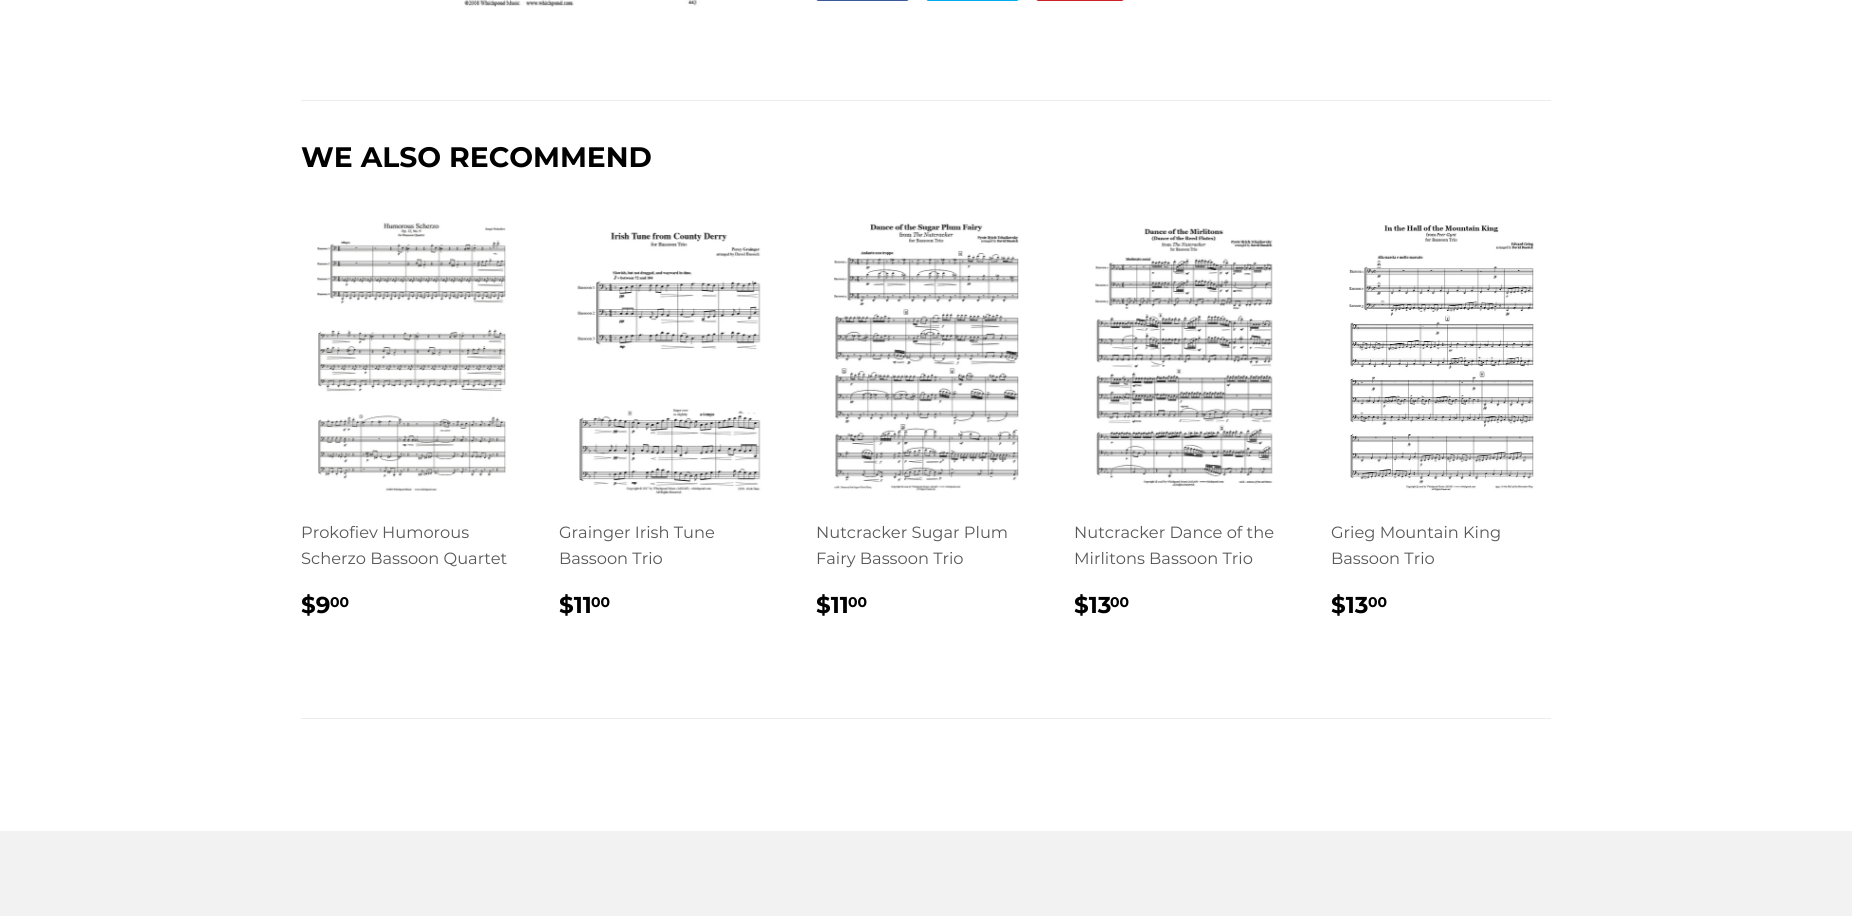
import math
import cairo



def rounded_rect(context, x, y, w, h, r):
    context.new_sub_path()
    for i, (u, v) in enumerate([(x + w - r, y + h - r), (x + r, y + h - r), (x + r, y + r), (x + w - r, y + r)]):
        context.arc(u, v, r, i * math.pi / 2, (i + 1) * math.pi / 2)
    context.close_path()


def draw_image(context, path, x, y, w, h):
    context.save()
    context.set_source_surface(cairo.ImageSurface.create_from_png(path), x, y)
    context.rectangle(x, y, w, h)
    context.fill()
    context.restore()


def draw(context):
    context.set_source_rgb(1, 1, 1)
    context.paint()
    context.set_source_rgb(59 / 255, 89 / 255, 152 / 255)
    rounded_rect(context, 816, -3, 93, 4, 2.5)
    context.fill()
    context.set_source_rgb(0, 172 / 255, 237 / 255)
    rounded_rect(context, 926, -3, 93, 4, 2.5)
    context.fill()
    context.set_source_rgb(203 / 255, 32 / 255, 39 / 255)
    rounded_rect(context, 1036, -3, 88, 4, 2.5)
    context.fill()
    draw_image(context, "images/1.png", 464, 0, 236, 7)
    context.set_source_rgb(236 / 255, 236 / 255, 236 / 255)
    context.rectangle(301, 100, 1250, 1)
    context.fill()
    draw_image(context, "images/2.png", 317, 222, 190, 270)
    draw_image(context, "images/3.png", 577, 232, 184, 263)
    draw_image(context, "images/4.png", 834, 223, 185, 268)
    draw_image(context, "images/5.png", 1095, 228, 178, 259)
    draw_image(context, "images/6.png", 1349, 225, 185, 266)
    context.rectangle(301, 718, 1250, 1)
    context.fill()
    context.set_source_rgb(242 / 255, 242 / 255, 242 / 255)
    context.rectangle(0, 831, 1852, 85)
    context.fill()
    context.select_font_face("Montserrat", cairo.FontSlant.NORMAL, cairo.FontWeight.BOLD)
    context.set_font_size(28.2)
    context.set_source_rgb(0, 0, 0)
    context.move_to(301, 167)
    context.show_text("WE ALSO RECOMMEND")
    context.select_font_face("Montserrat")
    context.set_font_size(16.25)
    context.set_source_rgb(88 / 255, 88 / 255, 88 / 255)
    context.move_to(301, 538)
    context.show_text("Prokofiev Humorous")
    context.move_to(301, 564)
    context.show_text("Scherzo Bassoon Quartet")
    context.select_font_face("Montserrat", cairo.FontSlant.NORMAL, cairo.FontWeight.BOLD)
    context.set_font_size(23)
    context.set_source_rgb(0, 0, 0)
    context.move_to(301, 613)
    context.show_text("$9")
    context.set_font_size(14)
    context.move_to(330, 607)
    context.show_text("00")
    context.select_font_face("Montserrat")
    context.set_font_size(16.25)
    context.set_source_rgb(88 / 255, 88 / 255, 88 / 255)
    context.move_to(559, 538)
    context.show_text("Grainger Irish Tune")
    context.move_to(559, 564)
    context.show_text("Bassoon Trio")
    context.select_font_face("Montserrat", cairo.FontSlant.NORMAL, cairo.FontWeight.BOLD)
    context.set_font_size(23)
    context.set_source_rgb(0, 0, 0)
    context.move_to(559, 613)
    context.show_text("$11")
    context.set_font_size(14)
    context.move_to(591, 607)
    context.show_text("00")
    context.select_font_face("Montserrat")
    context.set_font_size(16.25)
    context.set_source_rgb(88 / 255, 88 / 255, 88 / 255)
    context.move_to(816, 538)
    context.show_text("Nutcracker Sugar Plum")
    context.move_to(816, 564)
    context.show_text("Fairy Bassoon Trio")
    context.select_font_face("Montserrat", cairo.FontSlant.NORMAL, cairo.FontWeight.BOLD)
    context.set_font_size(23)
    context.set_source_rgb(0, 0, 0)
    context.move_to(816, 613)
    context.show_text("$11")
    context.set_font_size(14)
    context.move_to(848, 607)
    context.show_text("00")
    context.select_font_face("Montserrat")
    context.set_font_size(16.25)
    context.set_source_rgb(88 / 255, 88 / 255, 88 / 255)
    context.move_to(1074, 538)
    context.show_text("Nutcracker Dance of the")
    context.move_to(1074, 564)
    context.show_text("Mirlitons Bassoon Trio")
    context.select_font_face("Montserrat", cairo.FontSlant.NORMAL, cairo.FontWeight.BOLD)
    context.set_font_size(23)
    context.set_source_rgb(0, 0, 0)
    context.move_to(1074, 613)
    context.show_text("$13")
    context.set_font_size(14)
    context.move_to(1110, 607)
    context.show_text("00")
    context.select_font_face("Montserrat")
    context.set_font_size(16.25)
    context.set_source_rgb(88 / 255, 88 / 255, 88 / 255)
    context.move_to(1331, 538)
    context.show_text("Grieg Mountain King")
    context.move_to(1331, 564)
    context.show_text("Bassoon Trio")
    context.select_font_face("Montserrat", cairo.FontSlant.NORMAL, cairo.FontWeight.BOLD)
    context.set_font_size(23)
    context.set_source_rgb(0, 0, 0)
    context.move_to(1331, 613)
    context.show_text("$13")
    context.set_font_size(14)
    context.move_to(1368, 607)
    context.show_text("00")


surface = cairo.ImageSurface(cairo.Format.RGB24, 1852, 916)
context = cairo.Context(surface)
options = cairo.FontOptions()
options.set_hint_metrics(cairo.HintMetrics.OFF)
options.set_hint_style(cairo.HintStyle.NONE)
context.set_font_options(options)
context.set_miter_limit(4)
draw(context)
surface.write_to_png("out.png")
